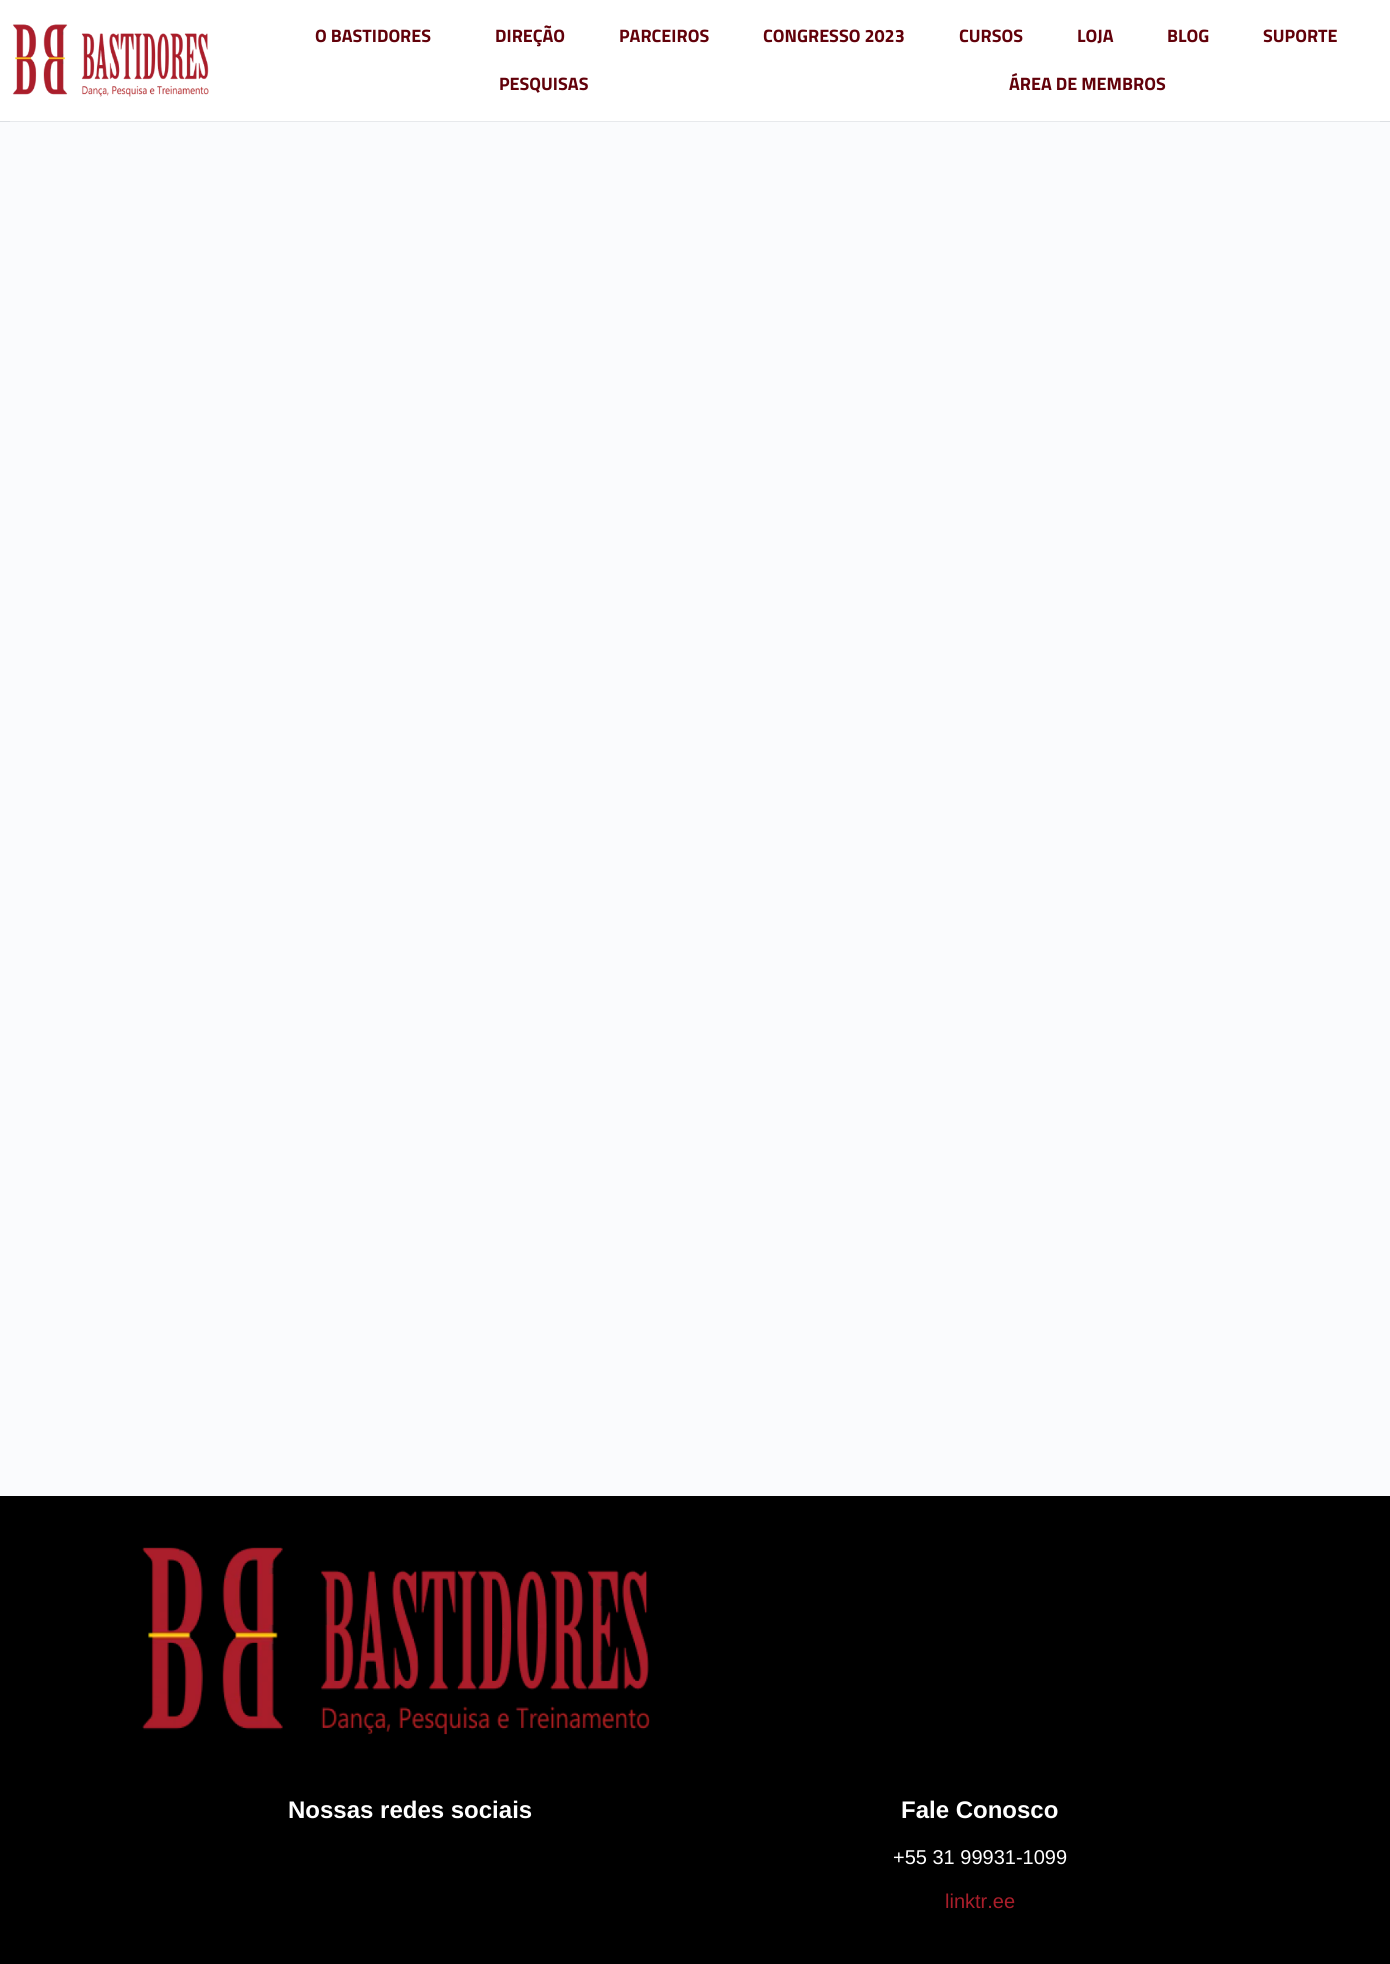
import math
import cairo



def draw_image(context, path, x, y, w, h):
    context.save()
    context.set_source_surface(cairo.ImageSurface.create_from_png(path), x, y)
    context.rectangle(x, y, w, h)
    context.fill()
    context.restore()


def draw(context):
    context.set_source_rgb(250 / 255, 251 / 255, 253 / 255)
    context.paint()
    context.set_source_rgb(1, 1, 1)
    context.rectangle(0, 0, 1390, 121)
    context.fill()
    context.set_source_rgb(220 / 255, 223 / 255, 227 / 255)
    context.rectangle(0, 121, 1390, 1)
    context.fill()
    context.set_source_rgb(231 / 255, 233 / 255, 236 / 255)
    context.rectangle(10, 121, 1370, 1)
    context.fill()
    draw_image(context, "images/1.png", 12, 24, 197, 73)
    context.set_source_rgb(0, 0, 0)
    context.rectangle(0, 1496, 1390, 468)
    context.fill()
    draw_image(context, "images/2.png", 142, 1547, 508, 188)
    context.select_font_face("Titillium Web", cairo.FontSlant.NORMAL, cairo.FontWeight.BOLD)
    context.set_font_size(18)
    context.set_source_rgb(98 / 255, 1 / 255, 10 / 255)
    context.move_to(315, 42)
    context.show_text("O BASTIDORES")
    context.move_to(495, 42)
    context.show_text("DIREÇÃO")
    context.move_to(619, 42)
    context.show_text("PARCEIROS")
    context.move_to(763, 42)
    context.show_text("CONGRESSO 2023")
    context.move_to(959, 42)
    context.show_text("CURSOS")
    context.move_to(1077, 42)
    context.show_text("LOJA")
    context.move_to(1167, 42)
    context.show_text("BLOG")
    context.move_to(1263, 42)
    context.show_text("SUPORTE")
    context.move_to(499, 90)
    context.show_text("PESQUISAS")
    context.move_to(1009, 90)
    context.show_text("ÁREA DE MEMBROS")
    context.select_font_face("Liberation Sans", cairo.FontSlant.NORMAL, cairo.FontWeight.BOLD)
    context.set_font_size(24)
    context.set_source_rgb(1, 1, 1)
    context.move_to(288, 1818)
    context.show_text("Nossas redes sociais")
    context.move_to(901, 1818)
    context.show_text("Fale Conosco")
    context.select_font_face("Liberation Sans")
    context.set_font_size(20)
    context.move_to(893, 1864)
    context.show_text("+55 31 99931-1099")
    context.set_source_rgb(169 / 255, 30 / 255, 42 / 255)
    context.move_to(945, 1908)
    context.show_text("linktr.ee")


surface = cairo.ImageSurface(cairo.Format.RGB24, 1390, 1964)
context = cairo.Context(surface)
options = cairo.FontOptions()
options.set_hint_metrics(cairo.HintMetrics.OFF)
options.set_hint_style(cairo.HintStyle.NONE)
context.set_font_options(options)
context.set_miter_limit(4)
draw(context)
surface.write_to_png("out.png")
